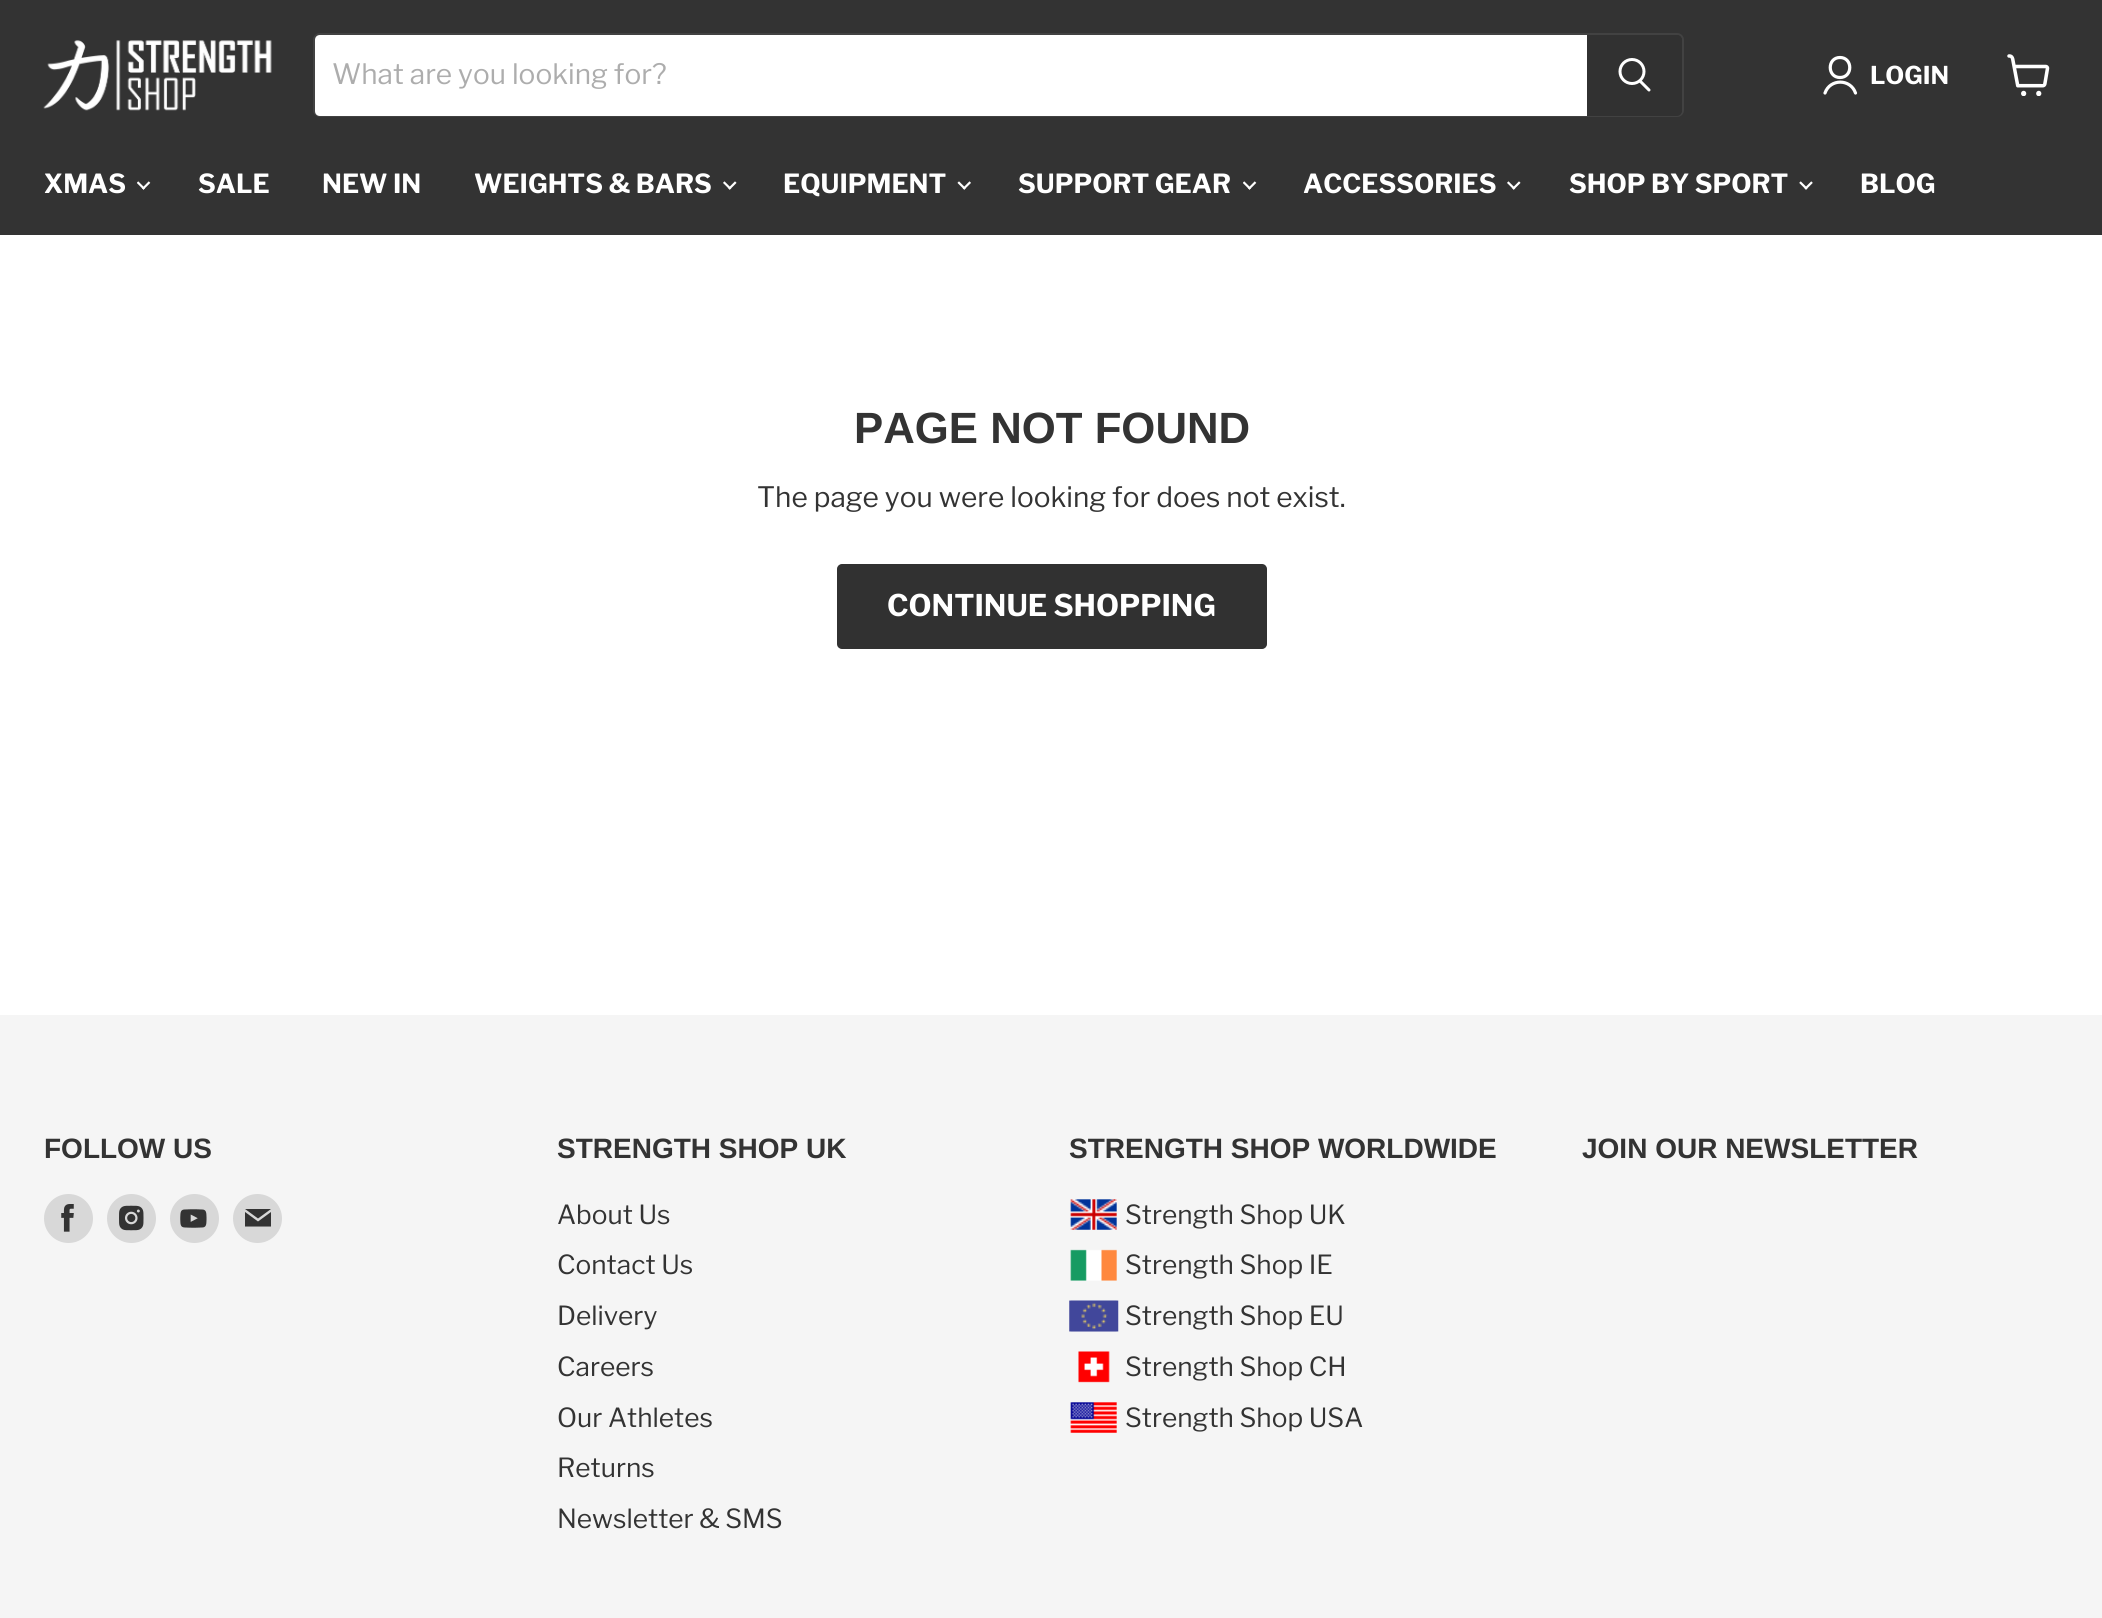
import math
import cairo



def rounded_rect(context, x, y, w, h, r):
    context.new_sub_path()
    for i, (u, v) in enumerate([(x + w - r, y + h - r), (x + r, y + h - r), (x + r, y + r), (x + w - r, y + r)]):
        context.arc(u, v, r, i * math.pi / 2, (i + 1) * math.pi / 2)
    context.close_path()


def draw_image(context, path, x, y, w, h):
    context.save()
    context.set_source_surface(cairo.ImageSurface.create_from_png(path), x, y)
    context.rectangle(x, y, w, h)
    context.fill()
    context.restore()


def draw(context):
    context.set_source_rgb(1, 1, 1)
    context.paint()
    context.set_source_rgb(51 / 255, 51 / 255, 51 / 255)
    context.rectangle(0, 0, 2102, 235)
    context.fill()
    draw_image(context, "images/1.png", 43, 40, 229, 71)
    rounded_rect(context, 314, 34, 1369, 82, 6)
    context.set_source_rgba(128 / 255, 128 / 255, 128 / 255, 0.2)
    context.stroke()
    context.set_source_rgb(1, 1, 1)
    context.new_path()
    context.move_to(320, 35)
    context.line_to(1587, 35)
    context.line_to(1587, 116)
    context.line_to(320, 116)
    context.curve_to(317, 116, 315, 114, 315, 111)
    context.line_to(315, 40)
    context.curve_to(315, 37, 317, 35, 320, 35)
    context.close_path()
    context.fill()
    context.set_source_rgb(49 / 255, 49 / 255, 49 / 255)
    context.new_path()
    context.move_to(1588, 36)
    context.line_to(1677, 36)
    context.curve_to(1679, 36, 1681, 38, 1681, 40)
    context.line_to(1681, 111)
    context.curve_to(1681, 113, 1679, 115, 1677, 115)
    context.line_to(1588, 115)
    context.close_path()
    context.fill_preserve()
    context.stroke()
    context.new_path()
    context.move_to(1649, 90)
    context.line_to(1640.5, 81.5)
    context.set_source_rgb(1, 1, 1)
    context.set_line_width(3)
    context.set_line_cap(cairo.LineCap.ROUND)
    context.stroke()
    context.arc(1632, 71.5, 12, 0, 2 * math.pi)
    context.set_line_cap(cairo.LineCap.BUTT)
    context.stroke()
    context.new_path()
    context.move_to(1840, 77.5)
    context.curve_to(1853, 77.5, 1853, 57.5, 1840, 57.5)
    context.curve_to(1827, 57.5, 1827, 77.5, 1840, 77.5)
    context.close_path()
    context.move_to(1855.5, 93)
    context.curve_to(1850.5, 78.5, 1830, 78.5, 1825, 93)
    context.set_line_width(3.2)
    context.set_line_cap(cairo.LineCap.ROUND)
    context.set_line_join(cairo.LineJoin.ROUND)
    context.stroke()
    draw_image(context, "images/2.png", 2007, 54, 43, 42)
    draw_image(context, "images/3.png", 137, 181, 14, 9)
    draw_image(context, "images/4.png", 723, 181, 14, 9)
    draw_image(context, "images/5.png", 957, 181, 14, 9)
    draw_image(context, "images/3.png", 1243, 181, 14, 9)
    draw_image(context, "images/4.png", 1507, 181, 14, 9)
    draw_image(context, "images/6.png", 1799, 181, 14, 9)
    context.set_source_rgb(49 / 255, 49 / 255, 49 / 255)
    rounded_rect(context, 838, 565, 428, 83, 4)
    context.fill_preserve()
    context.set_line_width(2)
    context.set_line_cap(cairo.LineCap.BUTT)
    context.set_line_join(cairo.LineJoin.MITER)
    context.stroke()
    context.set_source_rgb(245 / 255, 245 / 255, 245 / 255)
    context.rectangle(0, 1015, 2102, 603)
    context.fill()
    context.set_source_rgb(216 / 255, 216 / 255, 216 / 255)
    context.arc(68.5, 1218.5, 24.5, 0, 2 * math.pi)
    context.fill()
    draw_image(context, "images/7.png", 61, 1204, 13, 28)
    context.arc(131.5, 1218.5, 24.5, 0, 2 * math.pi)
    context.fill()
    draw_image(context, "images/8.png", 119, 1205, 25, 26)
    context.arc(194.5, 1218.5, 24.5, 0, 2 * math.pi)
    context.fill()
    draw_image(context, "images/9.png", 180, 1209, 27, 19)
    context.arc(257.5, 1218.5, 24.5, 0, 2 * math.pi)
    context.fill()
    context.set_source_rgb(51 / 255, 51 / 255, 51 / 255)
    context.set_fill_rule(cairo.FillRule.EVEN_ODD)
    context.new_path()
    context.move_to(271, 1209)
    context.line_to(245, 1209)
    context.line_to(258, 1218.5)
    context.close_path()
    context.move_to(258, 1221.5)
    context.line_to(245, 1212)
    context.line_to(245, 1226.5)
    context.line_to(271, 1226.5)
    context.line_to(271, 1212)
    context.close_path()
    context.fill()
    draw_image(context, "images/10.png", 1070, 1199, 47, 31)
    draw_image(context, "images/11.png", 1070, 1249, 47, 32)
    draw_image(context, "images/12.png", 1069, 1300, 50, 32)
    draw_image(context, "images/13.png", 1078, 1351, 32, 32)
    draw_image(context, "images/14.png", 1070, 1402, 47, 31)
    context.select_font_face("Libre Franklin")
    context.set_font_size(28)
    context.set_source_rgb(173 / 255, 173 / 255, 173 / 255)
    context.move_to(332, 84)
    context.show_text("What are you looking for?")
    context.select_font_face("Libre Franklin", cairo.FontSlant.NORMAL, cairo.FontWeight.BOLD)
    context.set_font_size(24.5)
    context.set_source_rgb(1, 1, 1)
    context.move_to(1870, 84)
    context.show_text("LOGIN")
    context.set_font_size(26.25)
    context.move_to(44, 193)
    context.show_text("XMAS")
    context.move_to(198, 193)
    context.show_text("SALE")
    context.move_to(322, 193)
    context.show_text("NEW IN")
    context.move_to(474, 193)
    context.show_text("WEIGHTS & BARS")
    context.move_to(783, 193)
    context.show_text("EQUIPMENT")
    context.move_to(1018, 193)
    context.show_text("SUPPORT GEAR")
    context.move_to(1303, 193)
    context.show_text("ACCESSORIES")
    context.move_to(1569, 193)
    context.show_text("SHOP BY SPORT")
    context.move_to(1860, 193)
    context.show_text("BLOG")
    context.select_font_face("Arimo", cairo.FontSlant.NORMAL, cairo.FontWeight.BOLD)
    context.set_font_size(43.75)
    context.set_source_rgb(51 / 255, 51 / 255, 51 / 255)
    context.move_to(854, 443)
    context.show_text("PAGE NOT FOUND")
    context.select_font_face("Libre Franklin")
    context.set_font_size(28)
    context.move_to(757, 507)
    context.show_text("The page you were looking for does not exist.")
    context.select_font_face("Libre Franklin", cairo.FontSlant.NORMAL, cairo.FontWeight.BOLD)
    context.set_font_size(29.75)
    context.set_source_rgb(1, 1, 1)
    context.move_to(887, 616)
    context.show_text("CONTINUE SHOPPING")
    context.select_font_face("Arimo", cairo.FontSlant.NORMAL, cairo.FontWeight.BOLD)
    context.set_font_size(28)
    context.set_source_rgb(51 / 255, 51 / 255, 51 / 255)
    context.move_to(44, 1158)
    context.show_text("FOLLOW US")
    context.move_to(557, 1158)
    context.show_text("STRENGTH SHOP UK")
    context.select_font_face("Libre Franklin")
    context.set_font_size(26.25)
    context.move_to(557, 1224)
    context.show_text("About Us")
    context.move_to(557, 1274)
    context.show_text("Contact Us")
    context.move_to(557, 1325)
    context.show_text("Delivery")
    context.move_to(557, 1376)
    context.show_text("Careers")
    context.move_to(557, 1427)
    context.show_text("Our Athletes")
    context.move_to(557, 1477)
    context.show_text("Returns")
    context.move_to(557, 1528)
    context.show_text("Newsletter & SMS")
    context.select_font_face("Arimo", cairo.FontSlant.NORMAL, cairo.FontWeight.BOLD)
    context.set_font_size(28)
    context.move_to(1069, 1158)
    context.show_text("STRENGTH SHOP WORLDWIDE")
    context.select_font_face("Libre Franklin")
    context.set_font_size(26.25)
    context.move_to(1125, 1224)
    context.show_text("Strength Shop UK")
    context.move_to(1125, 1274)
    context.show_text("Strength Shop IE")
    context.move_to(1125, 1325)
    context.show_text("Strength Shop EU")
    context.move_to(1125, 1376)
    context.show_text("Strength Shop CH")
    context.move_to(1125, 1427)
    context.show_text("Strength Shop USA")
    context.select_font_face("Arimo", cairo.FontSlant.NORMAL, cairo.FontWeight.BOLD)
    context.set_font_size(28)
    context.move_to(1582, 1158)
    context.show_text("JOIN OUR NEWSLETTER")


surface = cairo.ImageSurface(cairo.Format.RGB24, 2102, 1618)
context = cairo.Context(surface)
options = cairo.FontOptions()
options.set_hint_metrics(cairo.HintMetrics.OFF)
options.set_hint_style(cairo.HintStyle.NONE)
context.set_font_options(options)
context.set_miter_limit(4)
draw(context)
surface.write_to_png("out.png")
